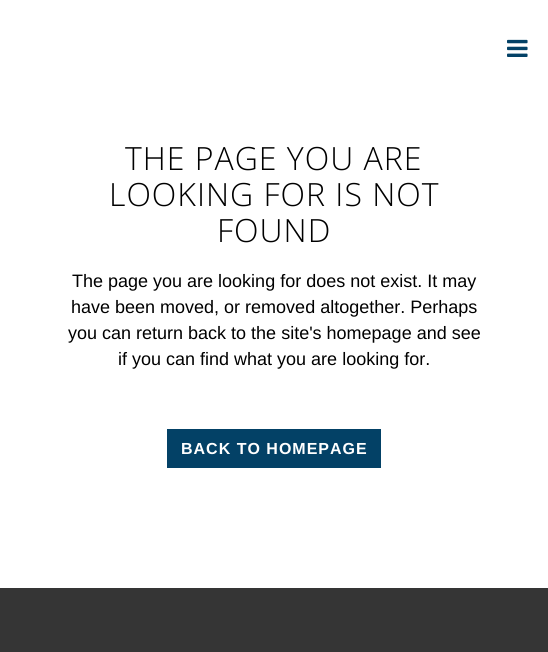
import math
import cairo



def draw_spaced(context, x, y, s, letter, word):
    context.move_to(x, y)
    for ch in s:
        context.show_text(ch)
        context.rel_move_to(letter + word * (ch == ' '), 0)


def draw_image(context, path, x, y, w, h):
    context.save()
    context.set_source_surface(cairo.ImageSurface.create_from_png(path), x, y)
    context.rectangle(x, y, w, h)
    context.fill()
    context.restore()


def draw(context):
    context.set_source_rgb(1, 1, 1)
    context.paint()
    draw_image(context, "images/1.png", 507, 39, 21, 18)
    context.set_source_rgb(3 / 255, 65 / 255, 102 / 255)
    context.rectangle(167, 429, 214, 39)
    context.fill()
    context.set_source_rgb(53 / 255, 53 / 255, 53 / 255)
    context.rectangle(0, 588, 548, 64)
    context.fill()
    context.select_font_face("Open Sans Light")
    context.set_font_size(32)
    context.set_source_rgb(0, 0, 0)
    draw_spaced(context, 125, 170, "THE PAGE YOU ARE", 1, 0)
    draw_spaced(context, 109, 206, "LOOKING FOR IS NOT", 1, 0)
    draw_spaced(context, 217, 242, "FOUND", 1, 0)
    context.select_font_face("Liberation Sans")
    context.set_font_size(18)
    context.move_to(72, 287)
    context.show_text("The page you are looking for does not exist. It may")
    context.move_to(71, 313)
    context.show_text("have been moved, or removed altogether. Perhaps")
    context.move_to(68, 339)
    context.show_text("you can return back to the site's homepage and see")
    context.move_to(118, 365)
    context.show_text("if you can find what you are looking for.")
    context.select_font_face("Liberation Sans", cairo.FontSlant.NORMAL, cairo.FontWeight.BOLD)
    context.set_font_size(16)
    context.set_source_rgb(1, 1, 1)
    draw_spaced(context, 181, 454, "BACK TO HOMEPAGE", 1, 0)


surface = cairo.ImageSurface(cairo.Format.RGB24, 548, 652)
context = cairo.Context(surface)
options = cairo.FontOptions()
options.set_hint_metrics(cairo.HintMetrics.OFF)
options.set_hint_style(cairo.HintStyle.NONE)
context.set_font_options(options)
context.set_miter_limit(4)
draw(context)
surface.write_to_png("out.png")
